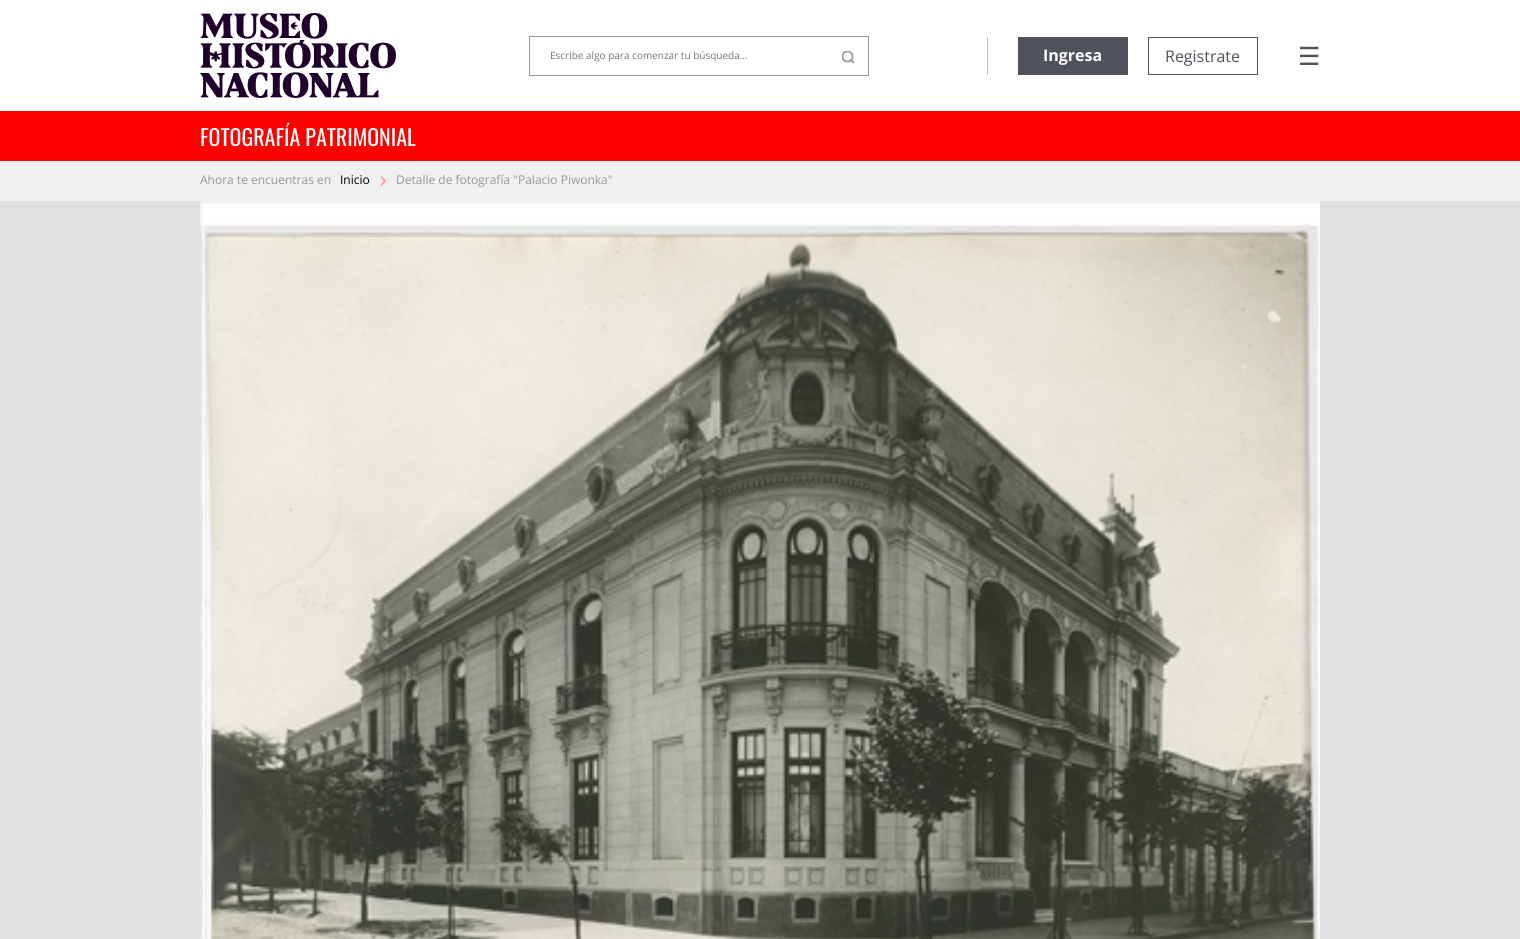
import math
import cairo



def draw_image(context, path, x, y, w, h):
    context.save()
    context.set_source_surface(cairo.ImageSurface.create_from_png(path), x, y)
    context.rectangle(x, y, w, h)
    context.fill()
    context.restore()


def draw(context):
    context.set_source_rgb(1, 1, 1)
    context.paint()
    draw_image(context, "images/1.png", 200, 13, 196, 85)
    context.rectangle(529.5, 36.5, 339, 39)
    context.set_source_rgb(153 / 255, 153 / 255, 153 / 255)
    context.set_line_width(1)
    context.stroke()
    context.save()
    context.rectangle(842, 51, 13, 13)
    context.clip()
    context.arc(847.5, 56.5, 5, 0, 2 * math.pi)
    context.set_line_width(1.8)
    context.stroke()
    context.restore()
    context.new_path()
    context.move_to(853.5, 62.5)
    context.line_to(851, 60)
    context.set_line_width(1.8)
    context.set_line_cap(cairo.LineCap.ROUND)
    context.set_line_join(cairo.LineJoin.ROUND)
    context.stroke()
    context.set_source_rgb(193 / 255, 193 / 255, 193 / 255)
    context.rectangle(987, 37, 1, 38)
    context.fill()
    context.set_source_rgb(80 / 255, 83 / 255, 90 / 255)
    context.rectangle(1018, 37, 110, 38)
    context.fill()
    context.rectangle(1148.5, 37.5, 109, 37)
    context.set_line_width(1)
    context.set_line_cap(cairo.LineCap.BUTT)
    context.set_line_join(cairo.LineJoin.MITER)
    context.stroke()
    context.set_source_rgb(1, 0, 0)
    context.rectangle(0, 111, 1520, 50)
    context.fill()
    context.set_source_rgb(240 / 255, 240 / 255, 240 / 255)
    context.rectangle(0, 161, 1520, 40)
    context.fill()
    draw_image(context, "images/2.png", 380, 176, 6, 10)
    context.set_source_rgb(224 / 255, 224 / 255, 224 / 255)
    context.rectangle(0, 201, 1520, 738)
    context.fill()
    draw_image(context, "images/3.png", 200, 201, 1120, 738)
    context.select_font_face("Open Sans")
    context.set_font_size(10)
    context.set_source_rgb(117 / 255, 117 / 255, 117 / 255)
    context.move_to(550, 59)
    context.show_text("Escribe algo para comenzar tu búsqueda...")
    context.select_font_face("Open Sans", cairo.FontSlant.NORMAL, cairo.FontWeight.BOLD)
    context.set_font_size(16)
    context.set_source_rgb(1, 1, 1)
    context.move_to(1043, 61)
    context.show_text("Ingresa")
    context.select_font_face("Open Sans")
    context.set_source_rgb(80 / 255, 83 / 255, 90 / 255)
    context.move_to(1165, 62)
    context.show_text("Registrate")
    context.select_font_face("DejaVu Sans")
    context.set_font_size(25)
    context.move_to(1298, 65)
    context.show_text("☰")
    context.select_font_face("Oswald")
    context.set_font_size(22)
    context.set_source_rgb(1, 1, 1)
    context.move_to(200, 146)
    context.show_text("FOTOGRAFÍA PATRIMONIAL")
    context.select_font_face("Open Sans")
    context.set_font_size(12)
    context.set_source_rgb(153 / 255, 153 / 255, 153 / 255)
    context.move_to(200, 184)
    context.show_text("Ahora te encuentras en")
    context.set_source_rgb(0, 0, 0)
    context.move_to(340, 184)
    context.show_text("Inicio")
    context.set_source_rgb(153 / 255, 153 / 255, 153 / 255)
    context.move_to(396, 184)
    context.show_text("Detalle de fotografía \"Palacio Piwonka\"")


surface = cairo.ImageSurface(cairo.Format.RGB24, 1520, 939)
context = cairo.Context(surface)
options = cairo.FontOptions()
options.set_hint_metrics(cairo.HintMetrics.OFF)
options.set_hint_style(cairo.HintStyle.NONE)
context.set_font_options(options)
context.set_miter_limit(4)
draw(context)
surface.write_to_png("out.png")
